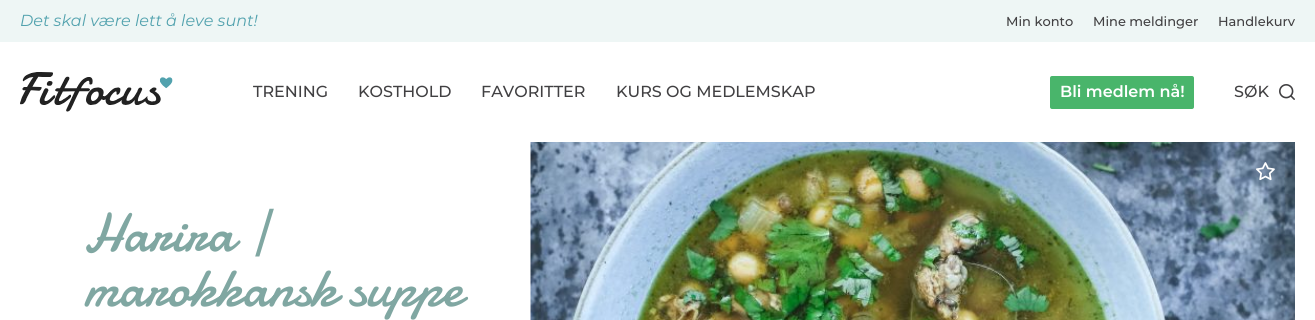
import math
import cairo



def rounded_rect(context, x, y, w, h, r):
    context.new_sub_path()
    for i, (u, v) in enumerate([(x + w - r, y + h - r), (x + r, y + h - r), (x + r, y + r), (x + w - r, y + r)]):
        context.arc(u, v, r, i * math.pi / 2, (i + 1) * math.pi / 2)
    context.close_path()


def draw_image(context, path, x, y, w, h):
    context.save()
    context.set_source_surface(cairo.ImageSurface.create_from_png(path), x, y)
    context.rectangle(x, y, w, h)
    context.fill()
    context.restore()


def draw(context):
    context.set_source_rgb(1, 1, 1)
    context.paint()
    context.set_source_rgb(238 / 255, 246 / 255, 245 / 255)
    context.rectangle(0, 0, 1315, 42)
    context.fill()
    draw_image(context, "images/1.png", 20, 72, 153, 40)
    context.set_source_rgb(73 / 255, 181 / 255, 107 / 255)
    rounded_rect(context, 1050, 76, 144, 33, 2)
    context.fill()
    draw_image(context, "images/2.png", 1279, 84, 16, 16)
    draw_image(context, "images/3.png", 530, 142, 765, 178)
    draw_image(context, "images/4.png", 1256, 162, 19, 19)
    context.select_font_face("Montserrat", cairo.FontSlant.ITALIC)
    context.set_font_size(16)
    context.set_source_rgb(82 / 255, 162 / 255, 174 / 255)
    context.move_to(20, 26)
    context.show_text("Det skal være lett å leve sunt!")
    context.select_font_face("Montserrat Medium")
    context.set_font_size(13)
    context.set_source_rgb(65 / 255, 64 / 255, 66 / 255)
    context.move_to(1006, 26)
    context.show_text("Min konto")
    context.move_to(1093, 26)
    context.show_text("Mine meldinger")
    context.move_to(1218, 26)
    context.show_text("Handlekurv")
    context.set_font_size(16)
    context.move_to(253, 97)
    context.show_text("TRENING")
    context.move_to(358, 97)
    context.show_text("KOSTHOLD")
    context.move_to(481, 97)
    context.show_text("FAVORITTER")
    context.move_to(616, 97)
    context.show_text("KURS OG MEDLEMSKAP")
    context.select_font_face("Montserrat SemiBold")
    context.set_source_rgb(1, 1, 1)
    context.move_to(1060, 97)
    context.show_text("Bli medlem nå!")
    context.select_font_face("Montserrat Medium")
    context.set_source_rgb(65 / 255, 64 / 255, 66 / 255)
    context.move_to(1234, 97)
    context.show_text("SØK")
    context.select_font_face("Damion")
    context.set_font_size(55)
    context.set_source_rgb(128 / 255, 167 / 255, 162 / 255)
    context.move_to(84, 251)
    context.show_text("Harira |")
    context.move_to(84, 306)
    context.show_text("marokkansk suppe")


surface = cairo.ImageSurface(cairo.Format.RGB24, 1315, 320)
context = cairo.Context(surface)
options = cairo.FontOptions()
options.set_hint_metrics(cairo.HintMetrics.OFF)
options.set_hint_style(cairo.HintStyle.NONE)
context.set_font_options(options)
context.set_miter_limit(4)
draw(context)
surface.write_to_png("out.png")
